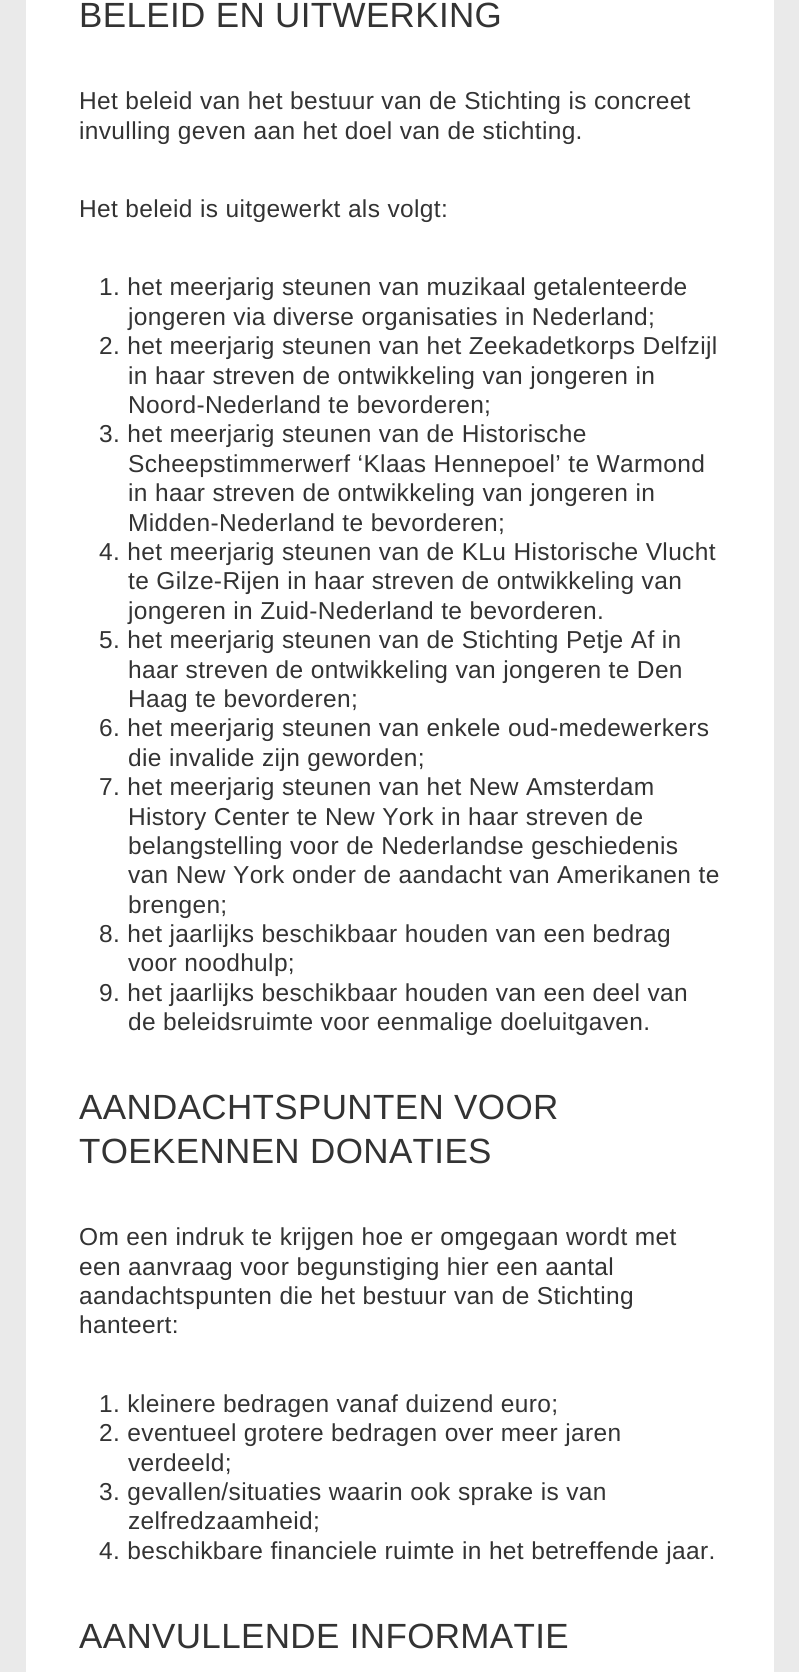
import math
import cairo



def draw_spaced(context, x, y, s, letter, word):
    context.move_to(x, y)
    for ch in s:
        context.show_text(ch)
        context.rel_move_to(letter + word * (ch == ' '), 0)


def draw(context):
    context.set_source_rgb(234 / 255, 234 / 255, 234 / 255)
    context.paint()
    context.set_source_rgb(1, 1, 1)
    context.rectangle(26, 0, 748, 1672)
    context.fill()
    context.select_font_face("Liberation Sans")
    context.set_font_size(35)
    context.set_source_rgb(51 / 255, 51 / 255, 51 / 255)
    draw_spaced(context, 79, 27, "BELEID EN UITWERKING", 0.35, 0)
    context.set_font_size(24.5)
    draw_spaced(context, 79, 109, "Het beleid van het bestuur van de Stichting is concreet", 0.35, 0)
    draw_spaced(context, 79, 139, "invulling geven aan het doel van de stichting.", 0.35, 0)
    draw_spaced(context, 79, 217, "Het beleid is uitgewerkt als volgt:", 0.35, 0)
    draw_spaced(context, 99, 295, "1. het meerjarig steunen van muzikaal getalenteerde", 0.35, 0)
    draw_spaced(context, 128, 325, "jongeren via diverse organisaties in Nederland;", 0.35, 0)
    draw_spaced(context, 99, 354, "2. het meerjarig steunen van het Zeekadetkorps Delfzijl", 0.35, 0)
    draw_spaced(context, 128, 384, "in haar streven de ontwikkeling van jongeren in", 0.35, 0)
    draw_spaced(context, 128, 413, "Noord-Nederland te bevorderen;", 0.35, 0)
    draw_spaced(context, 99, 442, "3. het meerjarig steunen van de Historische", 0.35, 0)
    draw_spaced(context, 128, 472, "Scheepstimmerwerf ‘Klaas Hennepoel’ te Warmond", 0.35, 0)
    draw_spaced(context, 128, 501, "in haar streven de ontwikkeling van jongeren in", 0.35, 0)
    draw_spaced(context, 128, 531, "Midden-Nederland te bevorderen;", 0.35, 0)
    draw_spaced(context, 99, 560, "4. het meerjarig steunen van de KLu Historische Vlucht", 0.35, 0)
    draw_spaced(context, 128, 589, "te Gilze-Rijen in haar streven de ontwikkeling van", 0.35, 0)
    draw_spaced(context, 128, 619, "jongeren in Zuid-Nederland te bevorderen.", 0.35, 0)
    draw_spaced(context, 99, 648, "5. het meerjarig steunen van de Stichting Petje Af in", 0.35, 0)
    draw_spaced(context, 128, 678, "haar streven de ontwikkeling van jongeren te Den", 0.35, 0)
    draw_spaced(context, 128, 707, "Haag te bevorderen;", 0.35, 0)
    draw_spaced(context, 99, 736, "6. het meerjarig steunen van enkele oud-medewerkers", 0.35, 0)
    draw_spaced(context, 128, 766, "die invalide zijn geworden;", 0.35, 0)
    draw_spaced(context, 99, 795, "7. het meerjarig steunen van het New Amsterdam", 0.35, 0)
    draw_spaced(context, 128, 825, "History Center te New York in haar streven de", 0.35, 0)
    draw_spaced(context, 128, 854, "belangstelling voor de Nederlandse geschiedenis", 0.35, 0)
    draw_spaced(context, 128, 883, "van New York onder de aandacht van Amerikanen te", 0.35, 0)
    draw_spaced(context, 128, 913, "brengen;", 0.35, 0)
    draw_spaced(context, 99, 942, "8. het jaarlijks beschikbaar houden van een bedrag", 0.35, 0)
    draw_spaced(context, 128, 971, "voor noodhulp;", 0.35, 0)
    draw_spaced(context, 99, 1001, "9. het jaarlijks beschikbaar houden van een deel van", 0.35, 0)
    draw_spaced(context, 128, 1030, "de beleidsruimte voor eenmalige doeluitgaven.", 0.35, 0)
    context.set_font_size(35)
    draw_spaced(context, 79, 1119, "AANDACHTSPUNTEN VOOR", 0.35, 0)
    draw_spaced(context, 79, 1163, "TOEKENNEN DONATIES", 0.35, 0)
    context.set_font_size(24.5)
    draw_spaced(context, 79, 1245, "Om een indruk te krijgen hoe er omgegaan wordt met", 0.35, 0)
    draw_spaced(context, 79, 1275, "een aanvraag voor begunstiging hier een aantal", 0.35, 0)
    draw_spaced(context, 79, 1304, "aandachtspunten die het bestuur van de Stichting", 0.35, 0)
    draw_spaced(context, 79, 1333, "hanteert:", 0.35, 0)
    draw_spaced(context, 99, 1412, "1. kleinere bedragen vanaf duizend euro;", 0.35, 0)
    draw_spaced(context, 99, 1441, "2. eventueel grotere bedragen over meer jaren", 0.35, 0)
    draw_spaced(context, 128, 1471, "verdeeld;", 0.35, 0)
    draw_spaced(context, 99, 1500, "3. gevallen/situaties waarin ook sprake is van", 0.35, 0)
    draw_spaced(context, 128, 1529, "zelfredzaamheid;", 0.35, 0)
    draw_spaced(context, 99, 1559, "4. beschikbare financiele ruimte in het betreffende jaar.", 0.35, 0)
    context.set_font_size(35)
    draw_spaced(context, 79, 1648, "AANVULLENDE INFORMATIE", 0.35, 0)


surface = cairo.ImageSurface(cairo.Format.RGB24, 799, 1672)
context = cairo.Context(surface)
options = cairo.FontOptions()
options.set_hint_metrics(cairo.HintMetrics.OFF)
options.set_hint_style(cairo.HintStyle.NONE)
context.set_font_options(options)
context.set_miter_limit(4)
draw(context)
surface.write_to_png("out.png")
